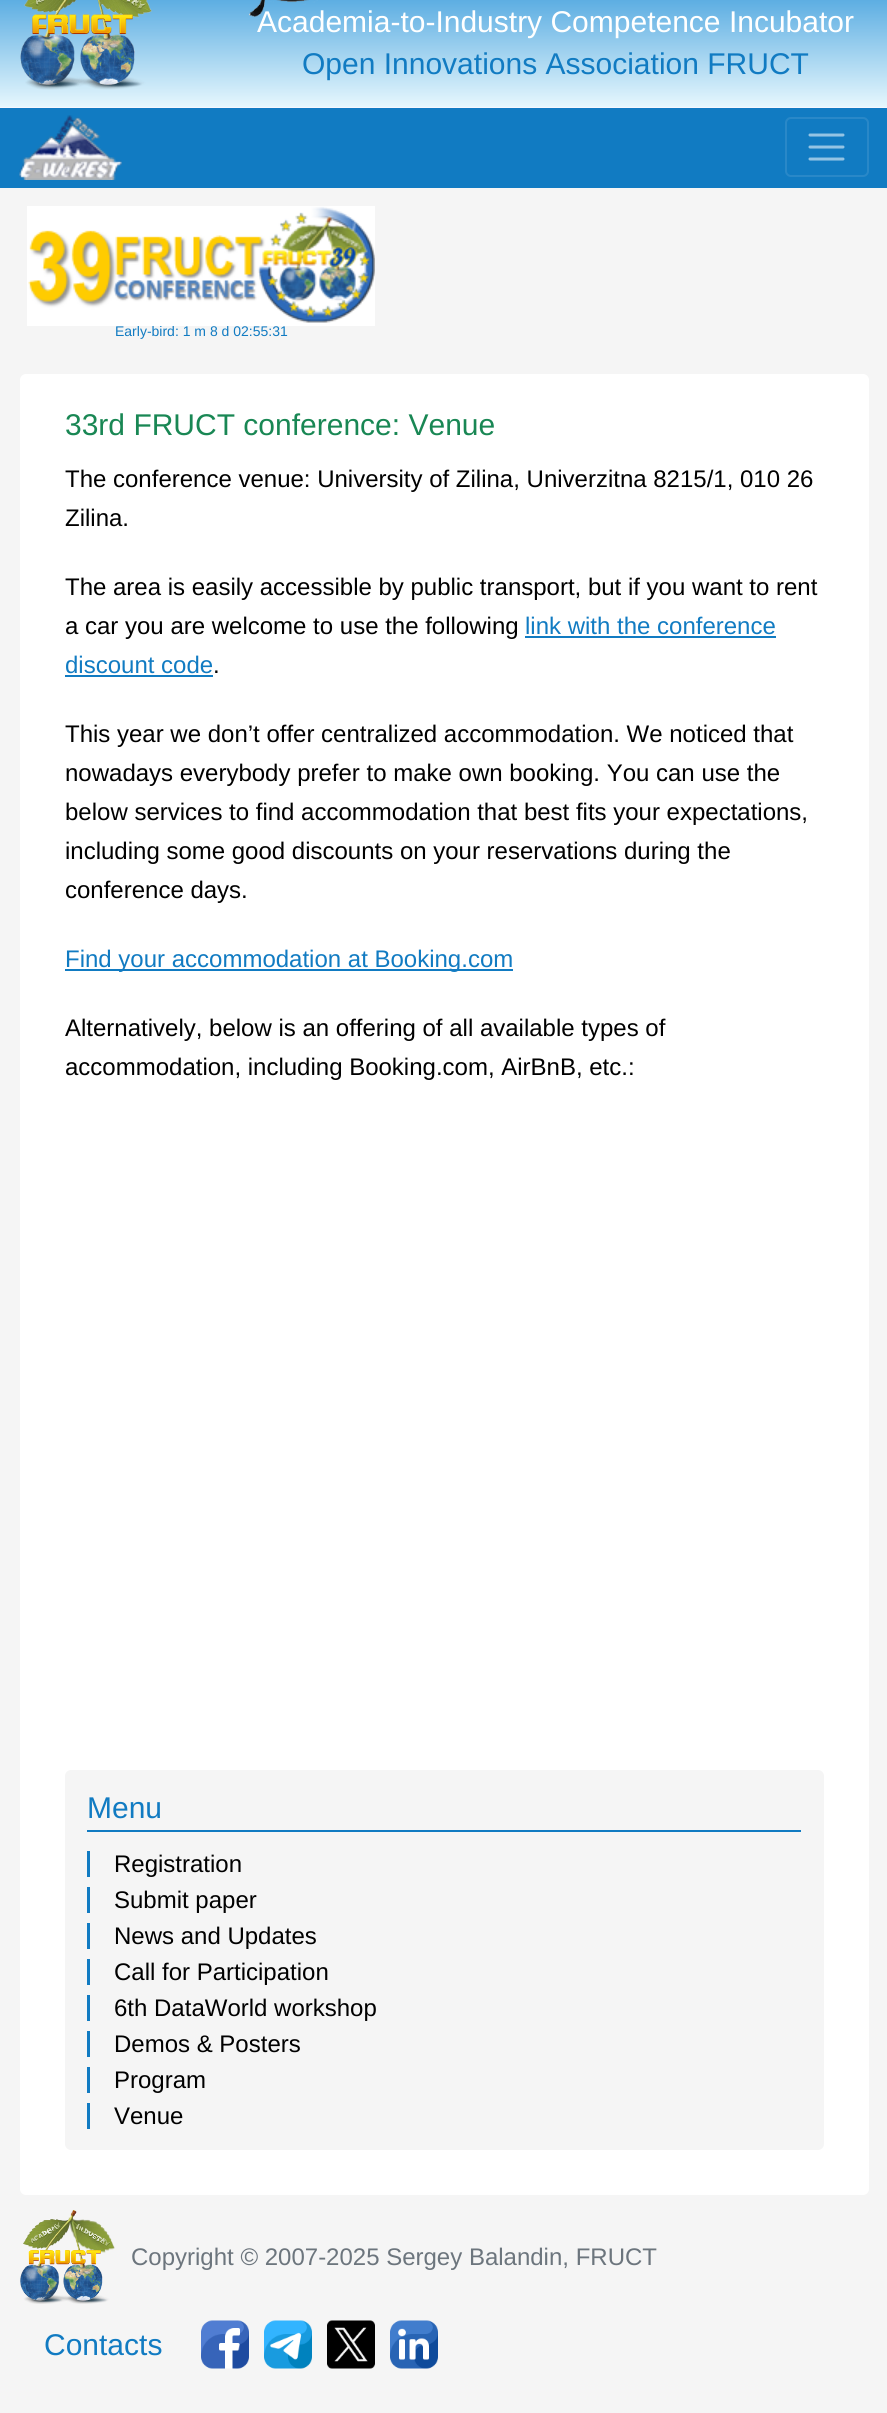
import math
import cairo



def rounded_rect(context, x, y, w, h, r):
    context.new_sub_path()
    for i, (u, v) in enumerate([(x + w - r, y + h - r), (x + r, y + h - r), (x + r, y + r), (x + w - r, y + r)]):
        context.arc(u, v, r, i * math.pi / 2, (i + 1) * math.pi / 2)
    context.close_path()


def draw_image(context, path, x, y, w, h):
    context.save()
    context.set_source_surface(cairo.ImageSurface.create_from_png(path), x, y)
    context.rectangle(x, y, w, h)
    context.fill()
    context.restore()


def draw(context):
    context.set_source_rgb(245 / 255, 245 / 255, 245 / 255)
    context.paint()
    gradient = cairo.LinearGradient(444, -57, 444, 107)
    gradient.add_color_stop_rgba(0, 20 / 255, 135 / 255, 212 / 255, 1)
    gradient.add_color_stop_rgba(1, 230 / 255, 247 / 255, 253 / 255, 1)
    context.set_source(gradient)
    context.rectangle(0, 0, 887, 107)
    context.fill()
    context.set_source_rgb(246 / 255, 247 / 255, 1)
    context.rectangle(0, 107, 887, 1)
    context.fill()
    draw_image(context, "images/1.png", 20, 0, 132, 90)
    draw_image(context, "images/2.png", 249, 0, 69, 17)
    context.set_source_rgb(17 / 255, 123 / 255, 194 / 255)
    context.rectangle(0, 108, 887, 80)
    context.fill()
    draw_image(context, "images/3.png", 19, 115, 103, 65)
    rounded_rect(context, 786, 118, 82, 58, 5)
    context.set_source_rgb(41 / 255, 136 / 255, 200 / 255)
    context.stroke()
    context.new_path()
    context.move_to(810, 135)
    context.line_to(843, 135)
    context.move_to(810, 147)
    context.line_to(843, 147)
    context.move_to(810, 159)
    context.line_to(843, 159)
    context.set_source_rgb(148 / 255, 196 / 255, 228 / 255)
    context.set_line_width(3)
    context.set_line_cap(cairo.LineCap.ROUND)
    context.stroke()
    context.set_source_rgb(1, 1, 1)
    rounded_rect(context, 20, 374, 849, 1821, 6)
    context.fill()
    context.set_source_rgb(17 / 255, 123 / 255, 194 / 255)
    context.rectangle(525, 636, 251, 2)
    context.fill()
    context.rectangle(65, 675, 148, 2)
    context.fill()
    context.rectangle(65, 969, 448, 2)
    context.fill()
    context.set_source_rgb(245 / 255, 245 / 255, 245 / 255)
    rounded_rect(context, 65, 1770, 759, 380, 6)
    context.fill()
    context.set_source_rgb(17 / 255, 123 / 255, 194 / 255)
    context.rectangle(87, 1830, 714, 2)
    context.fill()
    context.rectangle(87, 1851, 3, 26)
    context.fill()
    context.rectangle(87, 1887, 3, 26)
    context.fill()
    context.rectangle(87, 1923, 3, 26)
    context.fill()
    context.rectangle(87, 1959, 3, 26)
    context.fill()
    context.rectangle(87, 1995, 3, 26)
    context.fill()
    context.rectangle(87, 2031, 3, 26)
    context.fill()
    context.rectangle(87, 2067, 3, 26)
    context.fill()
    context.rectangle(87, 2103, 3, 26)
    context.fill()
    draw_image(context, "images/5.png", 20, 2210, 95, 94)
    draw_image(context, "images/6.png", 201, 2320, 48, 49)
    draw_image(context, "images/7.png", 264, 2320, 48, 49)
    draw_image(context, "images/8.png", 327, 2320, 48, 49)
    draw_image(context, "images/9.png", 390, 2320, 48, 49)
    context.select_font_face("Liberation Sans")
    context.set_font_size(30)
    context.set_source_rgb(1, 1, 1)
    context.move_to(257, 32)
    context.show_text("Academia-to-Industry Competence Incubator")
    context.set_source_rgb(17 / 255, 123 / 255, 194 / 255)
    context.move_to(302, 74)
    context.show_text("Open Innovations Association FRUCT")
    context.set_font_size(14)
    context.move_to(115, 336)
    context.show_text("Early-bird: 1 m 8 d 02:55:31")
    draw_image(context, "images/4.png", 27, 206, 348, 120)
    context.set_font_size(30)
    context.set_source_rgb(25 / 255, 135 / 255, 84 / 255)
    context.move_to(65, 435)
    context.show_text("33rd FRUCT conference: Venue")
    context.set_font_size(24)
    context.set_source_rgb(0, 0, 0)
    context.move_to(65, 487)
    context.show_text("The conference venue: University of Zilina, Univerzitna 8215/1, 010 26")
    context.move_to(65, 526)
    context.show_text("Zilina.")
    context.move_to(65, 595)
    context.show_text("The area is easily accessible by public transport, but if you want to rent")
    context.move_to(65, 634)
    context.show_text("a car you are welcome to use the following")
    context.set_source_rgb(17 / 255, 123 / 255, 194 / 255)
    context.move_to(525, 634)
    context.show_text("link with the conference")
    context.move_to(65, 673)
    context.show_text("discount code")
    context.set_source_rgb(0, 0, 0)
    context.move_to(213, 673)
    context.show_text(".")
    context.move_to(65, 742)
    context.show_text("This year we don’t offer centralized accommodation. We noticed that")
    context.move_to(65, 781)
    context.show_text("nowadays everybody prefer to make own booking. You can use the")
    context.move_to(65, 820)
    context.show_text("below services to find accommodation that best fits your expectations,")
    context.move_to(65, 859)
    context.show_text("including some good discounts on your reservations during the")
    context.move_to(65, 898)
    context.show_text("conference days.")
    context.set_source_rgb(17 / 255, 123 / 255, 194 / 255)
    context.move_to(65, 967)
    context.show_text("Find your accommodation at Booking.com")
    context.set_source_rgb(0, 0, 0)
    context.move_to(65, 1036)
    context.show_text("Alternatively, below is an offering of all available types of")
    context.move_to(65, 1075)
    context.show_text("accommodation, including Booking.com, AirBnB, etc.:")
    context.set_font_size(30)
    context.set_source_rgb(17 / 255, 123 / 255, 194 / 255)
    context.move_to(87, 1818)
    context.show_text("Menu")
    context.set_font_size(24)
    context.set_source_rgb(0, 0, 0)
    context.move_to(114, 1872)
    context.show_text("Registration")
    context.move_to(114, 1908)
    context.show_text("Submit paper")
    context.move_to(114, 1944)
    context.show_text("News and Updates")
    context.move_to(114, 1980)
    context.show_text("Call for Participation")
    context.move_to(114, 2016)
    context.show_text("6th DataWorld workshop")
    context.move_to(114, 2052)
    context.show_text("Demos & Posters")
    context.move_to(114, 2088)
    context.show_text("Program")
    context.move_to(114, 2124)
    context.show_text("Venue")
    context.set_source_rgb(108 / 255, 117 / 255, 125 / 255)
    context.move_to(131, 2265)
    context.show_text("Copyright © 2007-2025 Sergey Balandin, FRUCT")
    context.set_font_size(30)
    context.set_source_rgb(17 / 255, 123 / 255, 194 / 255)
    context.move_to(44, 2355)
    context.show_text("Contacts")


surface = cairo.ImageSurface(cairo.Format.RGB24, 887, 2413)
context = cairo.Context(surface)
options = cairo.FontOptions()
options.set_hint_metrics(cairo.HintMetrics.OFF)
options.set_hint_style(cairo.HintStyle.NONE)
context.set_font_options(options)
context.set_miter_limit(4)
draw(context)
surface.write_to_png("out.png")
